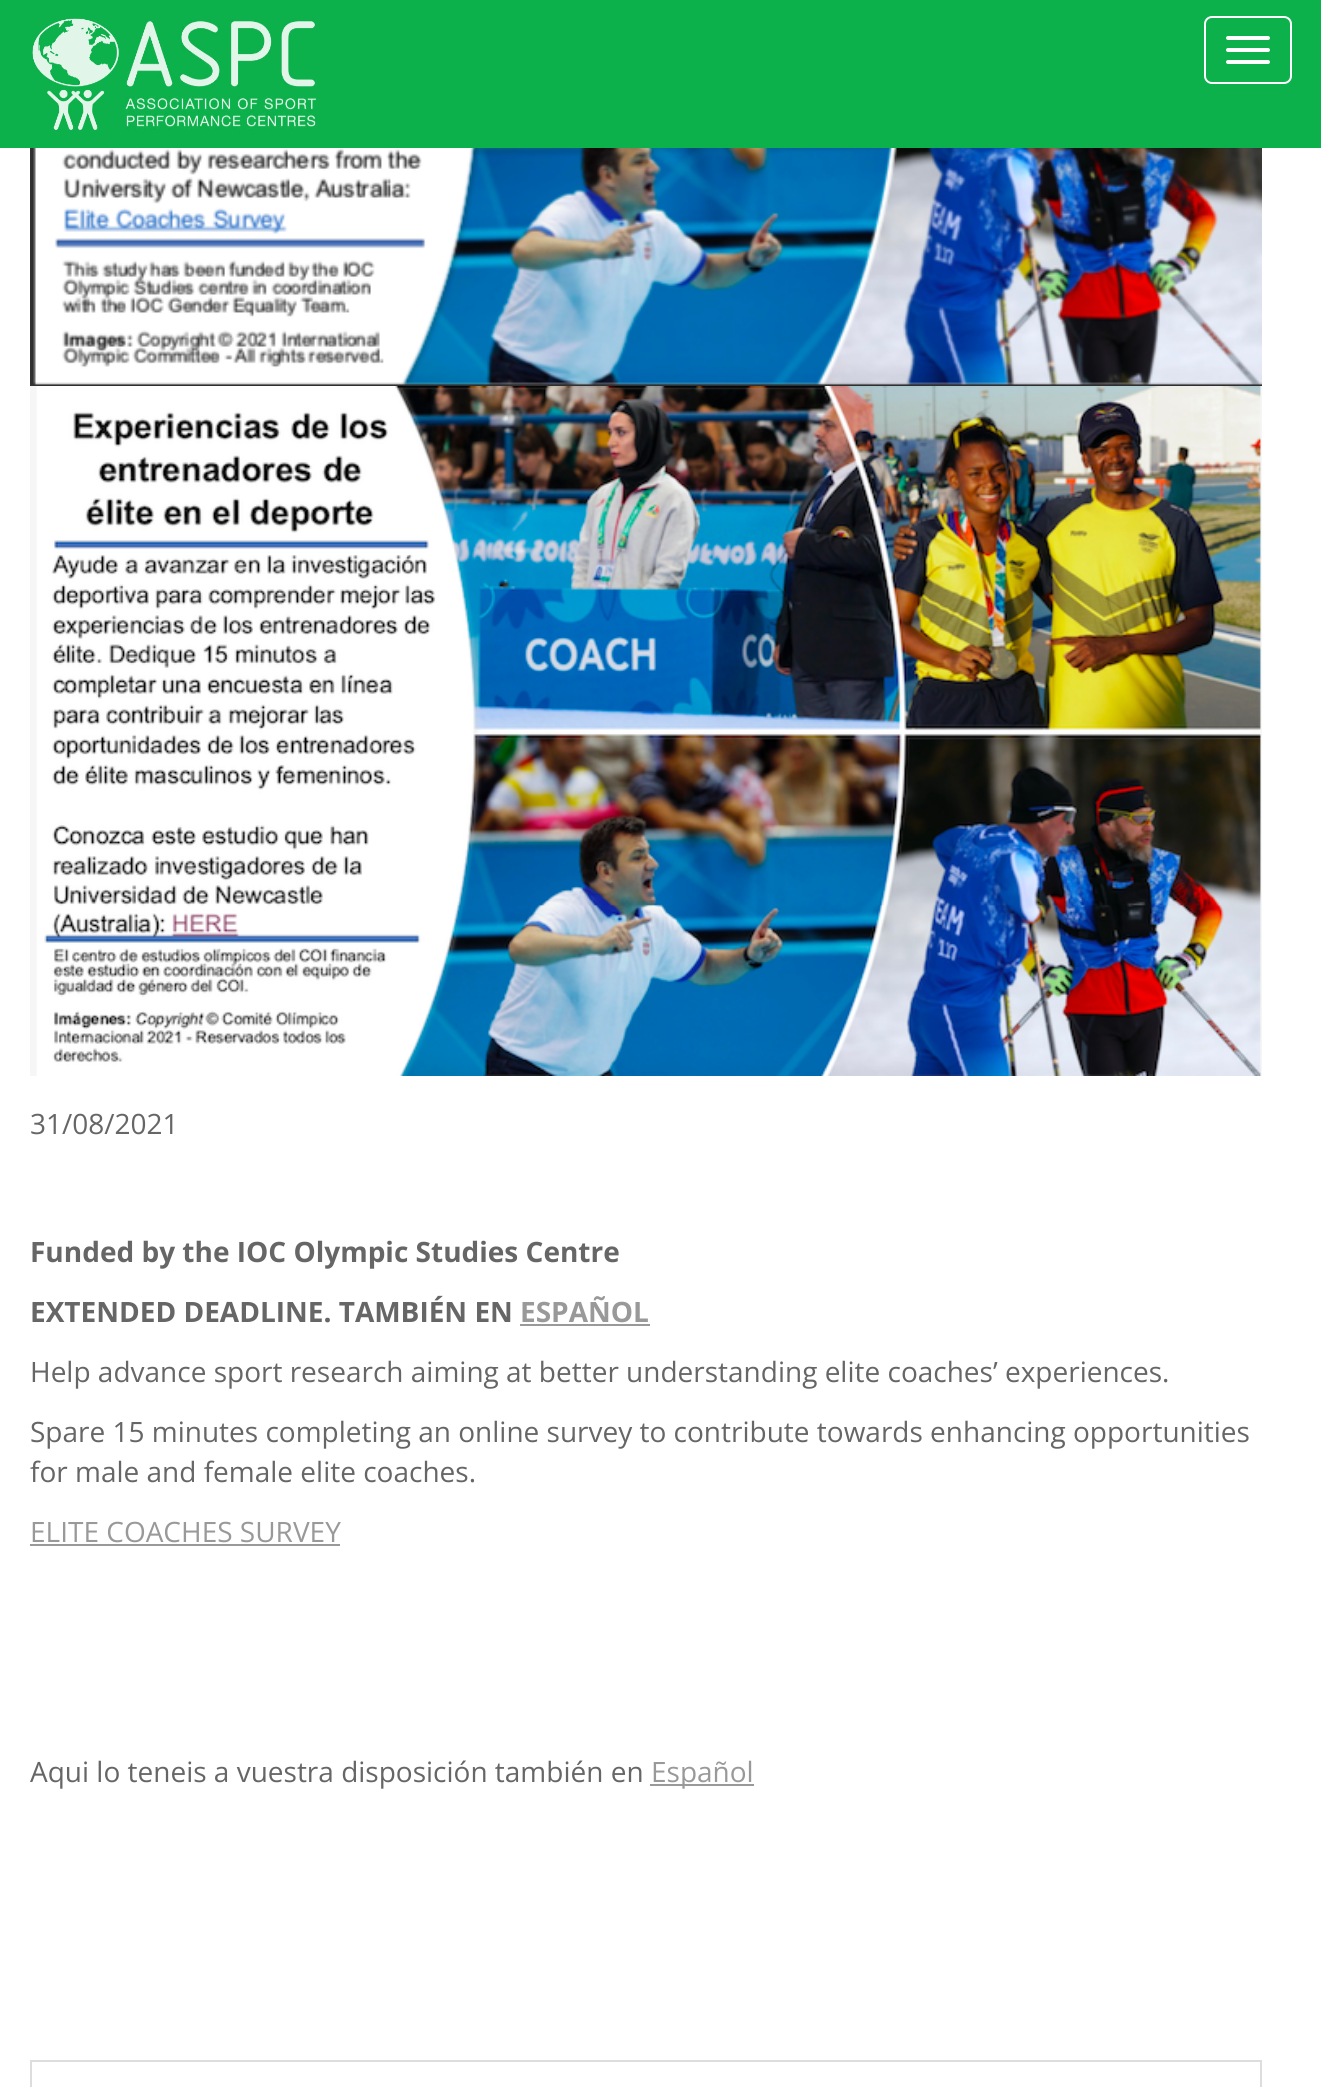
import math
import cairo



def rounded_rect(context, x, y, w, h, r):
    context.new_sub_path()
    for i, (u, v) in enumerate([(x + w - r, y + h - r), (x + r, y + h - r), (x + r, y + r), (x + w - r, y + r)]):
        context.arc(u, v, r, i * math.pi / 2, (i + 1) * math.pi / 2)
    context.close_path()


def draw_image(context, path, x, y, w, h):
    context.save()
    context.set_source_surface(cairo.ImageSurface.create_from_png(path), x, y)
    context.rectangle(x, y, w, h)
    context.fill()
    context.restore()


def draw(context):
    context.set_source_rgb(1, 1, 1)
    context.paint()
    context.set_source_rgb(12 / 255, 177 / 255, 75 / 255)
    context.rectangle(0, 0, 1321, 148)
    context.fill()
    draw_image(context, "images/1.png", 32, 18, 285, 113)
    rounded_rect(context, 1205, 17, 86, 66, 7)
    context.set_source_rgb(1, 1, 1)
    context.stroke()
    rounded_rect(context, 1226, 36, 44, 4, 2)
    context.fill()
    rounded_rect(context, 1226, 48, 44, 4, 2)
    context.fill()
    rounded_rect(context, 1226, 60, 44, 4, 2)
    context.fill()
    draw_image(context, "images/2.png", 30, 148, 1232, 238)
    draw_image(context, "images/3.png", 30, 386, 1232, 690)
    context.set_source_rgb(153 / 255, 153 / 255, 153 / 255)
    context.rectangle(520, 1324, 130, 2)
    context.fill()
    context.rectangle(30, 1544, 310, 2)
    context.fill()
    context.rectangle(650, 1784, 104, 2)
    context.fill()
    context.rectangle(31, 2061, 1230, 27)
    context.set_source_rgb(221 / 255, 221 / 255, 221 / 255)
    context.stroke()
    context.select_font_face("Open Sans")
    context.set_font_size(28)
    context.set_source_rgb(102 / 255, 102 / 255, 102 / 255)
    context.move_to(30, 1134)
    context.show_text("31/08/2021")
    context.select_font_face("Open Sans", cairo.FontSlant.NORMAL, cairo.FontWeight.BOLD)
    context.move_to(30, 1262)
    context.show_text("Funded by the IOC Olympic Studies Centre")
    context.move_to(30, 1322)
    context.show_text("EXTENDED DEADLINE. TAMBIÉN EN")
    context.set_source_rgb(153 / 255, 153 / 255, 153 / 255)
    context.move_to(520, 1322)
    context.show_text("ESPAÑOL")
    context.select_font_face("Open Sans")
    context.set_source_rgb(102 / 255, 102 / 255, 102 / 255)
    context.move_to(30, 1382)
    context.show_text("Help advance sport research aiming at better understanding elite coaches’ experiences.")
    context.move_to(30, 1442)
    context.show_text("Spare 15 minutes completing an online survey to contribute towards enhancing opportunities")
    context.move_to(30, 1482)
    context.show_text("for male and female elite coaches.")
    context.set_source_rgb(153 / 255, 153 / 255, 153 / 255)
    context.move_to(30, 1542)
    context.show_text("ELITE COACHES SURVEY")
    context.set_source_rgb(102 / 255, 102 / 255, 102 / 255)
    context.move_to(30, 1782)
    context.show_text("Aqui lo teneis a vuestra disposición también en")
    context.set_source_rgb(153 / 255, 153 / 255, 153 / 255)
    context.move_to(651, 1782)
    context.show_text("Español")


surface = cairo.ImageSurface(cairo.Format.RGB24, 1321, 2087)
context = cairo.Context(surface)
options = cairo.FontOptions()
options.set_hint_metrics(cairo.HintMetrics.OFF)
options.set_hint_style(cairo.HintStyle.NONE)
context.set_font_options(options)
context.set_miter_limit(4)
draw(context)
surface.write_to_png("out.png")
